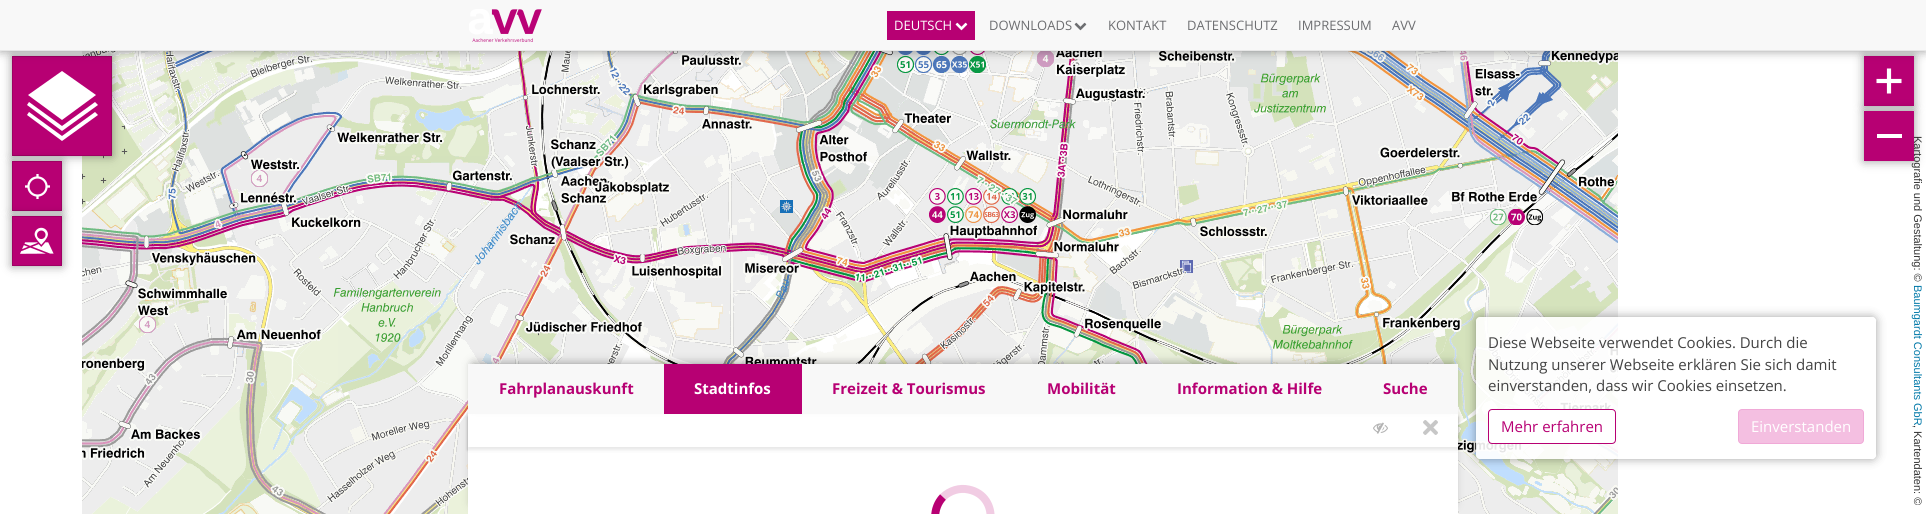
import math
import cairo



def rounded_rect(context, x, y, w, h, r):
    context.new_sub_path()
    for i, (u, v) in enumerate([(x + w - r, y + h - r), (x + r, y + h - r), (x + r, y + r), (x + w - r, y + r)]):
        context.arc(u, v, r, i * math.pi / 2, (i + 1) * math.pi / 2)
    context.close_path()


def draw_shadow(context, x, y, w, h, r, blur, alpha):
    context.push_group_with_content(cairo.Content.ALPHA)
    context.set_operator(cairo.Operator.SOURCE)
    for i in range(15, -16, -2):
        e = blur * i / 6
        if min(w, h) + 2 * e > 0:
            context.set_source_rgba(0, 0, 0, alpha * math.erfc((i - 1) / 8.5) / 2)
            rounded_rect(context, x - e, y - e, w + 2 * e, h + 2 * e, max(0, min(r + e + blur * .6, min(w, h) / 2 + e)))
            context.fill()
    context.mask(context.pop_group())


def draw_image(context, path, x, y, w, h):
    context.save()
    context.set_source_surface(cairo.ImageSurface.create_from_png(path), x, y)
    context.rectangle(x, y, w, h)
    context.fill()
    context.restore()


def draw(context):
    context.set_source_rgb(1, 1, 1)
    context.paint()
    draw_image(context, "images/9.png", 82, 51, 256, 105)
    draw_image(context, "images/15.png", 82, 156, 256, 256)
    context.set_source_rgb(0, 0, 0)
    draw_shadow(context, 12, 56, 100, 100, 0, 5, 0.4)
    context.set_source_rgb(183 / 255, 0, 115 / 255)
    context.rectangle(12.5, 56.5, 99, 99)
    context.fill_preserve()
    context.set_source_rgb(158 / 255, 0, 99 / 255)
    context.set_line_width(1)
    context.stroke()
    context.set_source_rgb(0, 0, 0)
    draw_shadow(context, 1864, 56, 50, 50, 0, 5, 0.4)
    context.set_source_rgb(183 / 255, 0, 115 / 255)
    context.rectangle(1864, 56, 50, 50)
    context.fill()
    draw_image(context, "images/10.png", 338, 51, 256, 105)
    draw_image(context, "images/11.png", 594, 51, 256, 105)
    draw_image(context, "images/12.png", 850, 51, 256, 105)
    draw_image(context, "images/13.png", 1106, 51, 256, 105)
    draw_image(context, "images/14.png", 1362, 51, 256, 105)
    context.set_source_rgb(0, 0, 0)
    draw_shadow(context, 0, 0, 1926, 51, 0, 5, 0.4)
    context.set_source_rgb(248 / 255, 248 / 255, 248 / 255)
    context.rectangle(0, 0, 1926, 50)
    context.fill()
    context.set_source_rgb(231 / 255, 231 / 255, 231 / 255)
    context.rectangle(0, 50, 1926, 1)
    context.fill()
    draw_image(context, "images/1.png", 469, 9, 73, 33)
    context.set_source_rgb(183 / 255, 0, 115 / 255)
    context.rectangle(887, 11, 88, 29)
    context.fill()
    draw_image(context, "images/2.png", 955, 22, 13, 9)
    draw_image(context, "images/3.png", 1074, 22, 13, 9)
    context.set_source_rgb(1, 1, 1)
    context.new_path()
    context.move_to(62, 120)
    context.line_to(28, 95)
    context.line_to(62, 71)
    context.line_to(96, 95)
    context.close_path()
    context.fill()
    context.new_path()
    context.move_to(62, 141)
    context.line_to(27, 115)
    context.line_to(29, 112)
    context.line_to(62, 136)
    context.line_to(95, 112)
    context.line_to(98, 115)
    context.close_path()
    context.fill()
    context.new_path()
    context.move_to(62, 131)
    context.line_to(27, 105)
    context.line_to(29, 102)
    context.line_to(62, 126)
    context.line_to(95, 102)
    context.line_to(98, 105)
    context.close_path()
    context.fill()
    context.set_source_rgb(0, 0, 0)
    draw_shadow(context, 12, 161, 50, 50, 0, 5, 0.4)
    context.set_source_rgb(183 / 255, 0, 115 / 255)
    context.rectangle(13, 162, 48, 48)
    context.fill()
    draw_image(context, "images/4.png", 25, 174, 25, 25)
    context.rectangle(12.5, 161.5, 49, 49)
    context.set_source_rgb(158 / 255, 0, 99 / 255)
    context.stroke()
    context.set_source_rgb(0, 0, 0)
    draw_shadow(context, 12, 216, 50, 50, 0, 5, 0.4)
    context.set_source_rgb(183 / 255, 0, 115 / 255)
    context.rectangle(12.5, 216.5, 49, 49)
    context.fill_preserve()
    context.set_source_rgb(158 / 255, 0, 99 / 255)
    context.stroke()
    draw_image(context, "images/5.png", 20, 227, 34, 27)
    draw_image(context, "images/6.png", 1876, 68, 26, 26)
    context.set_source_rgb(0, 0, 0)
    draw_shadow(context, 1864, 111, 50, 50, 0, 5, 0.4)
    draw_image(context, "images/16.png", 338, 156, 256, 256)
    draw_image(context, "images/20.png", 1362, 156, 256, 256)
    draw_image(context, "images/22.png", 338, 412, 130, 102)
    draw_image(context, "images/23.png", 1458, 412, 160, 102)
    draw_shadow(context, 473, 414, 980, 90, 0, 5, 0.4)
    context.set_source_rgb(1, 1, 1)
    context.rectangle(468, 414, 990, 100)
    context.fill()
    draw_image(context, "images/17.png", 594, 156, 256, 208)
    draw_image(context, "images/18.png", 850, 156, 256, 208)
    draw_image(context, "images/19.png", 1106, 156, 256, 208)
    context.set_source_rgb(0, 0, 0)
    draw_shadow(context, 473, 364, 980, 40, 0, 5, 0.4)
    context.save()
    context.set_fill_rule(cairo.FillRule.EVEN_ODD)
    context.new_path()
    context.move_to(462, 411)
    context.line_to(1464, 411)
    context.line_to(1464, 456)
    context.line_to(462, 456)
    context.close_path()
    context.move_to(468, 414)
    context.line_to(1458, 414)
    context.line_to(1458, 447)
    context.line_to(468, 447)
    context.close_path()
    context.clip()
    draw_shadow(context, 468, 417, 990, 33, 0, 1.5, 0.3)
    context.restore()
    context.set_source_rgb(248 / 255, 248 / 255, 248 / 255)
    context.rectangle(468, 364, 196, 50)
    context.fill()
    context.set_source_rgb(183 / 255, 0, 115 / 255)
    context.rectangle(664, 364, 138, 50)
    context.fill()
    context.set_source_rgb(248 / 255, 248 / 255, 248 / 255)
    context.rectangle(802, 364, 656, 50)
    context.fill()
    draw_image(context, "images/7.png", 1373, 422, 15, 12)
    draw_image(context, "images/8.png", 1423, 420, 15, 15)
    context.set_source_rgba(1, 1, 1, 0.7)
    context.rectangle(468, 420, 990, 32)
    context.fill()
    context.new_path()
    context.move_to(943, 497)
    context.curve_to(950, 490.5, 959.5, 487.5, 968.5, 489.5)
    context.curve_to(1001, 496, 996.5, 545, 963, 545)
    context.curve_to(955.5, 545, 948.5, 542, 943, 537)
    context.set_source_rgb(241 / 255, 204 / 255, 227 / 255)
    context.set_line_width(8)
    context.stroke()
    context.new_path()
    context.move_to(943, 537)
    context.curve_to(932.5, 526, 932.5, 508, 943, 497)
    context.set_source_rgb(183 / 255, 0, 115 / 255)
    context.stroke()
    context.save()
    context.set_fill_rule(cairo.FillRule.EVEN_ODD)
    context.new_path()
    context.move_to(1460, 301)
    context.line_to(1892, 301)
    context.line_to(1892, 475)
    context.line_to(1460, 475)
    context.close_path()
    context.move_to(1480, 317)
    context.line_to(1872, 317)
    context.curve_to(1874, 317, 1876, 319, 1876, 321)
    context.line_to(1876, 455)
    context.curve_to(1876, 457, 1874, 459, 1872, 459)
    context.line_to(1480, 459)
    context.curve_to(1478, 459, 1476, 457, 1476, 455)
    context.line_to(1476, 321)
    context.curve_to(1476, 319, 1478, 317, 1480, 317)
    context.close_path()
    context.clip()
    context.set_source_rgb(0, 0, 0)
    draw_shadow(context, 1476, 317, 400, 142, 4, 5, 0.36)
    context.restore()
    context.set_source_rgba(1, 1, 1, 0.9)
    rounded_rect(context, 1476, 317, 400, 142, 4)
    context.fill()
    context.set_source_rgb(1, 1, 1)
    rounded_rect(context, 1488.5, 409.5, 127, 34, 3.5)
    context.fill_preserve()
    context.set_source_rgb(183 / 255, 0, 115 / 255)
    context.set_line_width(1)
    context.stroke()
    context.set_source_rgb(244 / 255, 191 / 255, 225 / 255)
    rounded_rect(context, 1738.5, 409.5, 125, 34, 3.5)
    context.fill_preserve()
    context.set_source_rgb(240 / 255, 169 / 255, 215 / 255)
    context.stroke()
    draw_image(context, "images/21.png", 82, 412, 256, 102)
    context.select_font_face("Open Sans")
    context.set_font_size(13)
    context.set_source_rgb(1, 1, 1)
    context.move_to(894, 30)
    context.show_text("DEUTSCH")
    context.set_source_rgb(109 / 255, 110 / 255, 113 / 255)
    context.move_to(989, 30)
    context.show_text("DOWNLOADS")
    context.move_to(1108, 30)
    context.show_text("KONTAKT")
    context.move_to(1187, 30)
    context.show_text("DATENSCHUTZ")
    context.move_to(1298, 30)
    context.show_text("IMPRESSUM")
    context.move_to(1392, 30)
    context.show_text("AVV")
    context.select_font_face("Open Sans", cairo.FontSlant.NORMAL, cairo.FontWeight.BOLD)
    context.set_font_size(15)
    context.set_source_rgb(183 / 255, 0, 115 / 255)
    context.move_to(499, 394)
    context.show_text("Fahrplanauskunft")
    context.set_source_rgb(1, 1, 1)
    context.move_to(694, 394)
    context.show_text("Stadtinfos")
    context.set_source_rgb(183 / 255, 0, 115 / 255)
    context.move_to(832, 394)
    context.show_text("Freizeit & Tourismus")
    context.move_to(1047, 394)
    context.show_text("Mobilität")
    context.move_to(1177, 394)
    context.show_text("Information & Hilfe")
    context.move_to(1383, 394)
    context.show_text("Suche")
    context.select_font_face("Open Sans")
    context.set_source_rgb(67 / 255, 67 / 255, 67 / 255)
    context.move_to(1488, 348)
    context.show_text("Diese Webseite verwendet Cookies. Durch die")
    context.move_to(1488, 370)
    context.show_text("Nutzung unserer Webseite erklären Sie sich damit")
    context.move_to(1488, 391)
    context.show_text("einverstanden, dass wir Cookies einsetzen.")
    context.set_source_rgb(183 / 255, 0, 115 / 255)
    context.move_to(1501, 432)
    context.show_text("Mehr erfahren")
    context.set_source_rgb(1, 1, 1)
    context.move_to(1751, 432)
    context.show_text("Einverstanden")
    context.select_font_face("Liberation Sans")
    context.set_font_size(11)
    context.set_source_rgb(51 / 255, 51 / 255, 51 / 255)
    context.save()
    context.translate(1914, 136)
    context.rotate(90 * math.pi / 180)
    context.move_to(0, 0)
    context.show_text("Kartografie und Gestaltung: ©")
    context.restore()
    context.set_source_rgb(183 / 255, 0, 115 / 255)
    context.rectangle(1864, 111, 50, 50)
    context.fill()
    context.set_source_rgb(1, 1, 1)
    context.rectangle(1877, 134, 25, 4)
    context.fill()
    context.set_source_rgb(0, 120 / 255, 168 / 255)
    context.save()
    context.translate(1914, 285)
    context.rotate(90 * math.pi / 180)
    context.move_to(0, 0)
    context.show_text("Baumgardt Consultants GbR")
    context.restore()
    context.set_source_rgb(51 / 255, 51 / 255, 51 / 255)
    context.save()
    context.translate(1914, 425)
    context.rotate(90 * math.pi / 180)
    context.move_to(0, 0)
    context.show_text(", Kartendaten: ©")
    context.restore()


surface = cairo.ImageSurface(cairo.Format.RGB24, 1926, 514)
context = cairo.Context(surface)
options = cairo.FontOptions()
options.set_hint_metrics(cairo.HintMetrics.OFF)
options.set_hint_style(cairo.HintStyle.NONE)
context.set_font_options(options)
context.set_miter_limit(4)
draw(context)
surface.write_to_png("out.png")
